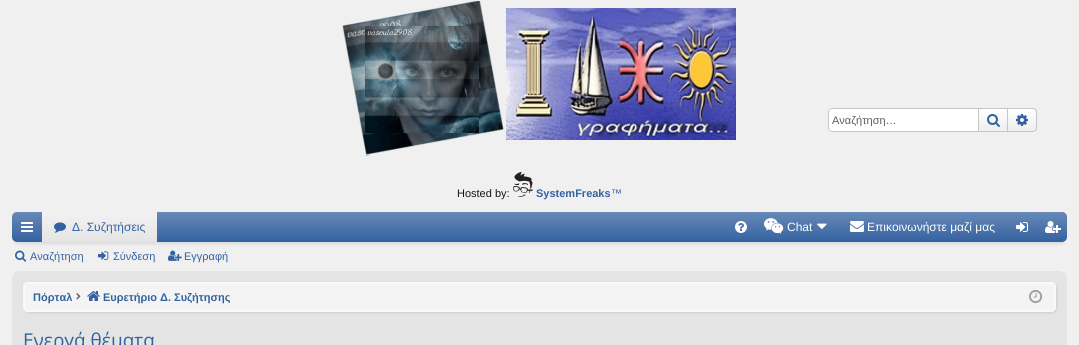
import math
import cairo



def rounded_rect(context, x, y, w, h, r):
    context.new_sub_path()
    for i, (u, v) in enumerate([(x + w - r, y + h - r), (x + r, y + h - r), (x + r, y + r), (x + w - r, y + r)]):
        context.arc(u, v, r, i * math.pi / 2, (i + 1) * math.pi / 2)
    context.close_path()


def draw_shadow(context, x, y, w, h, r, blur, alpha):
    context.push_group_with_content(cairo.Content.ALPHA)
    context.set_operator(cairo.Operator.SOURCE)
    for i in range(15, -16, -2):
        e = blur * i / 6
        if min(w, h) + 2 * e > 0:
            context.set_source_rgba(0, 0, 0, alpha * math.erfc((i - 1) / 8.5) / 2)
            rounded_rect(context, x - e, y - e, w + 2 * e, h + 2 * e, max(0, min(r + e + blur * .6, min(w, h) / 2 + e)))
            context.fill()
    context.mask(context.pop_group())


def draw_image(context, path, x, y, w, h):
    context.save()
    context.set_source_surface(cairo.ImageSurface.create_from_png(path), x, y)
    context.rectangle(x, y, w, h)
    context.fill()
    context.restore()


def draw(context):
    context.set_source_rgb(240 / 255, 240 / 255, 240 / 255)
    context.paint()
    draw_image(context, "images/1.png", 342, 1, 394, 155)
    context.set_source_rgb(1, 1, 1)
    context.new_path()
    context.move_to(832, 109)
    context.line_to(978, 109)
    context.line_to(978, 131)
    context.line_to(832, 131)
    context.curve_to(830.5, 131, 829, 129.5, 829, 128)
    context.line_to(829, 112)
    context.curve_to(829, 110.5, 830.5, 109, 832, 109)
    context.close_path()
    context.fill()
    context.set_source_rgb(198 / 255, 198 / 255, 198 / 255)
    context.set_fill_rule(cairo.FillRule.EVEN_ODD)
    context.new_path()
    context.move_to(832, 108)
    context.line_to(978, 108)
    context.line_to(978, 132)
    context.line_to(832, 132)
    context.curve_to(830, 132, 828, 130, 828, 128)
    context.line_to(828, 112)
    context.curve_to(828, 110, 830, 108, 832, 108)
    context.close_path()
    context.move_to(832, 109)
    context.line_to(978, 109)
    context.line_to(978, 131)
    context.line_to(832, 131)
    context.curve_to(830, 131, 829, 130, 829, 128)
    context.line_to(829, 112)
    context.curve_to(829, 110, 830, 109, 832, 109)
    context.close_path()
    context.fill()
    gradient = cairo.LinearGradient(993, 109, 993, 131)
    gradient.add_color_stop_rgba(0, 1, 1, 1, 1)
    gradient.add_color_stop_rgba(1, 238 / 255, 238 / 255, 238 / 255, 1)
    context.set_source(gradient)
    context.rectangle(979, 109, 28, 16)
    context.fill()
    context.rectangle(978.5, 108.5, 29, 23)
    context.set_source_rgb(198 / 255, 198 / 255, 198 / 255)
    context.set_line_width(1)
    context.stroke()
    draw_image(context, "images/2.png", 987, 114, 13, 13)
    gradient = cairo.LinearGradient(1022, 109, 1022, 131)
    gradient.add_color_stop_rgba(0, 1, 1, 1, 1)
    gradient.add_color_stop_rgba(1, 238 / 255, 238 / 255, 238 / 255, 1)
    context.set_source(gradient)
    context.new_path()
    context.move_to(1008, 109)
    context.line_to(1033, 109)
    context.curve_to(1034.5, 109, 1036, 110.5, 1036, 112)
    context.line_to(1036, 128)
    context.curve_to(1036, 129.5, 1034.5, 131, 1033, 131)
    context.line_to(1008, 131)
    context.close_path()
    context.fill()
    context.set_source_rgb(198 / 255, 198 / 255, 198 / 255)
    context.new_path()
    context.move_to(1008, 108)
    context.line_to(1033, 108)
    context.curve_to(1035, 108, 1037, 110, 1037, 112)
    context.line_to(1037, 128)
    context.curve_to(1037, 130, 1035, 132, 1033, 132)
    context.line_to(1008, 132)
    context.close_path()
    context.move_to(1008, 109)
    context.line_to(1033, 109)
    context.curve_to(1034.5, 109, 1036, 110.5, 1036, 112)
    context.line_to(1036, 128)
    context.curve_to(1036, 129.5, 1034.5, 131, 1033, 131)
    context.line_to(1008, 131)
    context.close_path()
    context.fill()
    draw_image(context, "images/3.png", 1016, 114, 12, 12)
    draw_image(context, "images/4.png", 513, 172, 20, 25)
    context.set_source_rgb(0, 0, 0)
    draw_shadow(context, 17, 222, 1045, 20, 0, 2.5, 0.2)
    context.set_source_rgb(52 / 255, 98 / 255, 160 / 255)
    rounded_rect(context, 12, 212, 1055, 30, 5)
    context.fill()
    gradient = cairo.LinearGradient(540, 212, 540, 242)
    gradient.add_color_stop_rgba(0, 1, 1, 1, 0.25)
    gradient.add_color_stop_rgba(1, 1, 1, 1, 0)
    context.set_source(gradient)
    rounded_rect(context, 12, 212, 1055, 30, 5)
    context.fill()
    draw_image(context, "images/5.png", 21, 222, 12, 10)
    gradient = cairo.LinearGradient(100, 212, 100, 242)
    gradient.add_color_stop_rgba(0, 242 / 255, 242 / 255, 242 / 255, 1)
    gradient.add_color_stop_rgba(1, 228 / 255, 228 / 255, 228 / 255, 1)
    context.set_source(gradient)
    context.rectangle(42, 212, 115, 30)
    context.fill()
    draw_image(context, "images/6.png", 54, 222, 12, 11)
    draw_image(context, "images/7.png", 735, 221, 12, 12)
    draw_image(context, "images/8.png", 764, 218, 20, 16)
    draw_image(context, "images/9.png", 817, 223, 10, 6)
    draw_image(context, "images/10.png", 850, 221, 14, 11)
    draw_image(context, "images/11.png", 1016, 222, 12, 10)
    draw_image(context, "images/12.png", 1045, 221, 16, 12)
    draw_image(context, "images/13.png", 15, 250, 12, 12)
    draw_image(context, "images/14.png", 98, 251, 11, 9)
    draw_image(context, "images/15.png", 168, 250, 14, 11)
    context.set_source_rgb(228 / 255, 228 / 255, 228 / 255)
    rounded_rect(context, 12.5, 271.5, 1054, 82, 7.5)
    context.fill_preserve()
    context.stroke()
    context.set_source_rgb(0, 0, 0)
    draw_shadow(context, 24, 283, 1033, 30, 5, 1, 0.1)
    context.set_source_rgb(244 / 255, 244 / 255, 244 / 255)
    rounded_rect(context, 23, 282, 1033, 30, 5)
    context.fill()
    rounded_rect(context, 24.5, 283.5, 1030, 27, 3.5)
    context.set_source_rgb(250 / 255, 250 / 255, 250 / 255)
    context.stroke()
    rounded_rect(context, 23.5, 282.5, 1032, 29, 4.5)
    context.set_source_rgb(249 / 255, 249 / 255, 249 / 255)
    context.stroke()
    draw_image(context, "images/16.png", 76, 293, 5, 7)
    draw_image(context, "images/17.png", 87, 291, 13, 10)
    draw_image(context, "images/18.png", 1029, 289, 14, 15)
    context.save()
    context.set_fill_rule(cairo.FillRule.WINDING)
    context.rectangle(832, 114, 139, 12)
    context.clip()
    context.select_font_face("Liberation Sans")
    context.set_font_size(11)
    context.set_source_rgb(91 / 255, 91 / 255, 91 / 255)
    context.move_to(832, 124)
    context.show_text("Αναζήτηση…")
    context.restore()
    context.select_font_face("Liberation Sans")
    context.set_font_size(11)
    context.set_source_rgb(20 / 255, 20 / 255, 20 / 255)
    context.move_to(457, 197)
    context.show_text("Hosted by:")
    context.select_font_face("Liberation Sans", cairo.FontSlant.NORMAL, cairo.FontWeight.BOLD)
    context.set_source_rgb(52 / 255, 98 / 255, 160 / 255)
    context.move_to(536, 197)
    context.show_text("SystemFreaks")
    context.select_font_face("Liberation Sans")
    context.move_to(611, 197)
    context.show_text("™")
    context.set_font_size(12)
    context.move_to(72, 231)
    context.show_text("Δ. Συζητήσεις")
    context.set_source_rgb(1, 1, 1)
    context.move_to(787, 231)
    context.show_text("Chat")
    context.move_to(867, 231)
    context.show_text("Επικοινωνήστε μαζί μας")
    context.set_font_size(11)
    context.set_source_rgb(52 / 255, 98 / 255, 160 / 255)
    context.move_to(30, 260)
    context.show_text("Αναζήτηση")
    context.move_to(113, 260)
    context.show_text("Σύνδεση")
    context.move_to(184, 260)
    context.show_text("Εγγραφή")
    context.select_font_face("Liberation Sans", cairo.FontSlant.NORMAL, cairo.FontWeight.BOLD)
    context.move_to(33, 301)
    context.show_text("Πόρταλ")
    context.move_to(103, 301)
    context.show_text("Ευρετήριο Δ. Συζήτησης")
    context.select_font_face("Open Sans")
    context.set_font_size(19)
    context.move_to(23, 347)
    context.show_text("Ενεργά θέματα")


surface = cairo.ImageSurface(cairo.Format.RGB24, 1079, 345)
context = cairo.Context(surface)
options = cairo.FontOptions()
options.set_hint_metrics(cairo.HintMetrics.OFF)
options.set_hint_style(cairo.HintStyle.NONE)
context.set_font_options(options)
context.set_miter_limit(4)
draw(context)
surface.write_to_png("out.png")
